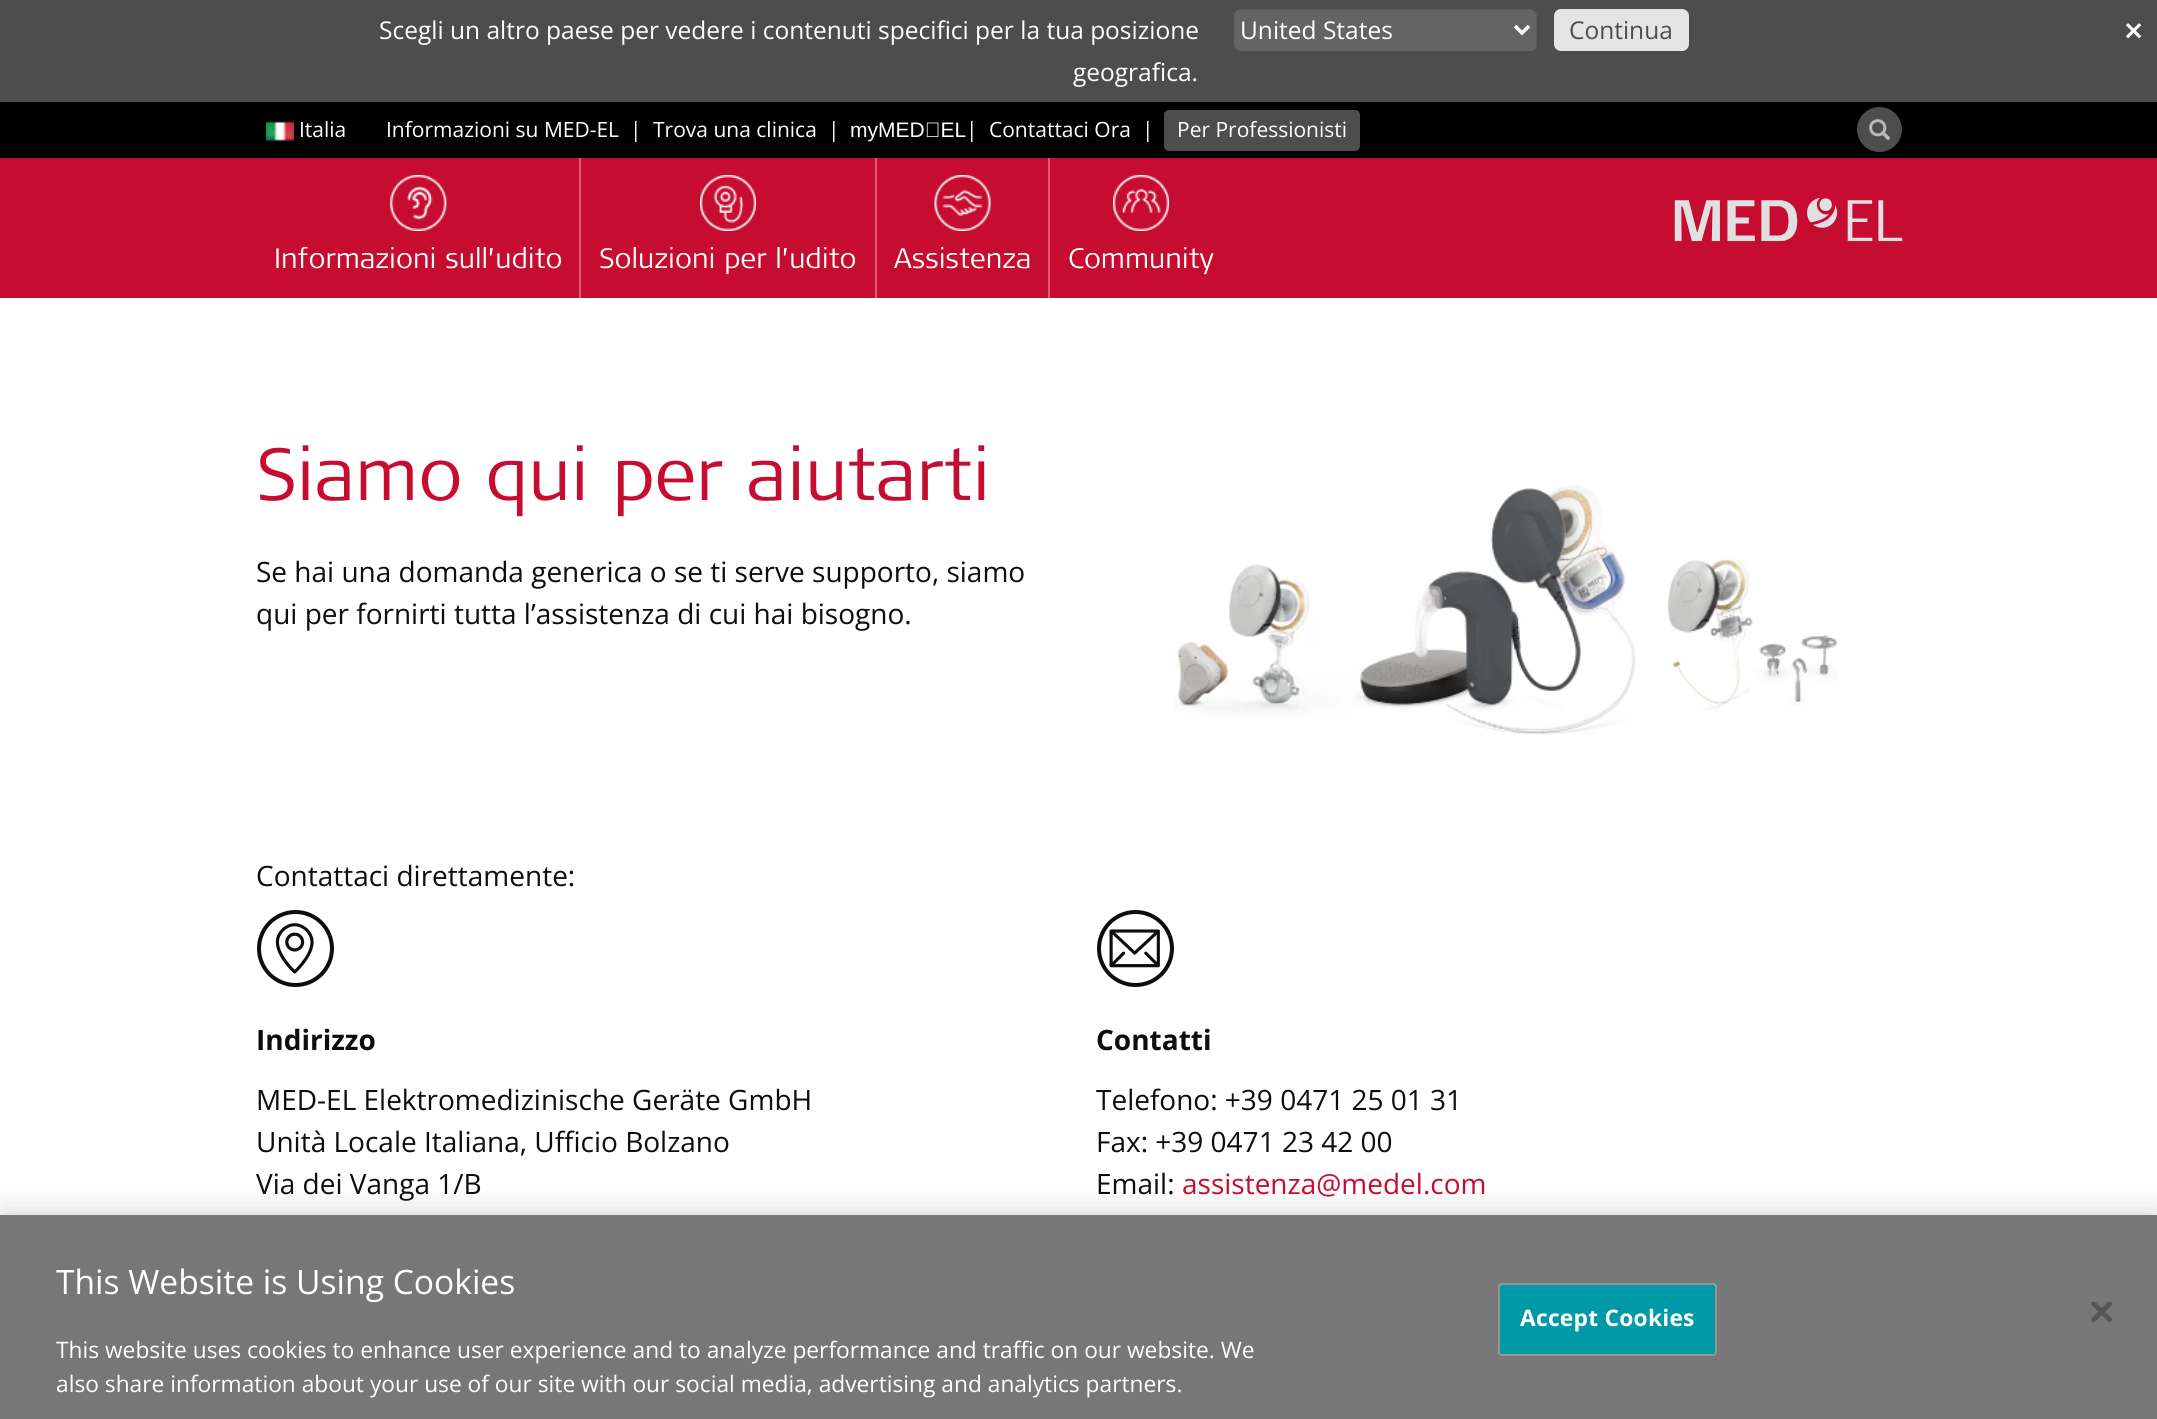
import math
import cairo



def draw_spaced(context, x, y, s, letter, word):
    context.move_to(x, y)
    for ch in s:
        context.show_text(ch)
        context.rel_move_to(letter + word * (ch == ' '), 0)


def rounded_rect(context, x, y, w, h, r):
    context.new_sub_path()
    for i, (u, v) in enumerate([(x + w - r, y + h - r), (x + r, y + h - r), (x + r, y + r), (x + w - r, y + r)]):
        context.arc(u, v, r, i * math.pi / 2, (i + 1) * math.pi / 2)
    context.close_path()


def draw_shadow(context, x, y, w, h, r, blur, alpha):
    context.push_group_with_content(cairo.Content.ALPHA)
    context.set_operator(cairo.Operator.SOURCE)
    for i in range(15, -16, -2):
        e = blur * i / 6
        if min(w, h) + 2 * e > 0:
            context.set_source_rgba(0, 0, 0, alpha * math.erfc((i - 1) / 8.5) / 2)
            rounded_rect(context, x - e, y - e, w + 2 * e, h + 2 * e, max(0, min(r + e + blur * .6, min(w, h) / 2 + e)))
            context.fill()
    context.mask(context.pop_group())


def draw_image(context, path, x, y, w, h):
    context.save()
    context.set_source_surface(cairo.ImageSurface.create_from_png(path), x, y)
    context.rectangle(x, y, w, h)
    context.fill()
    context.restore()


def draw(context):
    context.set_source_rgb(1, 1, 1)
    context.paint()
    context.set_source_rgb(77 / 255, 77 / 255, 77 / 255)
    context.rectangle(0, 0, 2157, 102)
    context.fill()
    context.set_source_rgb(100 / 255, 100 / 255, 100 / 255)
    rounded_rect(context, 1234, 9, 303, 42, 7)
    context.fill()
    context.set_source_rgba(0, 0, 0, 0.07)
    context.new_path()
    context.move_to(1241, 10)
    context.line_to(1530, 10)
    context.curve_to(1533, 10, 1536, 14, 1536, 18)
    context.line_to(1536, 46)
    context.line_to(1535, 49)
    context.curve_to(1536, 47, 1537, 46, 1537, 44)
    context.line_to(1537, 16)
    context.curve_to(1537, 12, 1534, 9, 1530, 9)
    context.line_to(1241, 9)
    context.curve_to(1237, 9, 1234, 12, 1234, 16)
    context.line_to(1234, 18)
    context.curve_to(1234, 14, 1237, 10, 1241, 10)
    context.close_path()
    context.fill()
    context.new_path()
    context.move_to(1515, 26)
    context.line_to(1522, 33)
    context.line_to(1529, 26)
    context.set_source_rgb(1, 1, 1)
    context.set_line_width(3.5)
    context.stroke()
    context.set_source_rgb(228 / 255, 228 / 255, 228 / 255)
    rounded_rect(context, 1555, 10, 133, 40, 6)
    context.fill_preserve()
    context.set_line_width(2)
    context.stroke()
    context.set_source_rgb(0, 0, 0)
    context.rectangle(0, 102, 2157, 56)
    context.fill()
    draw_image(context, "images/1.png", 266, 120, 28, 22)
    context.set_source_rgb(77 / 255, 77 / 255, 77 / 255)
    rounded_rect(context, 1164, 110, 196, 41, 5)
    context.fill()
    context.arc(1879.5, 129.5, 21.5, 0, 2 * math.pi)
    context.fill_preserve()
    context.stroke()
    draw_image(context, "images/2.png", 1869, 119, 22, 22)
    context.set_source_rgb(198 / 255, 12 / 255, 48 / 255)
    context.rectangle(0, 158, 2157, 140)
    context.fill()
    draw_image(context, "images/3.png", 1674, 198, 229, 44)
    context.set_source_rgb(224 / 255, 88 / 255, 114 / 255)
    context.rectangle(579, 158, 2, 140)
    context.fill()
    draw_image(context, "images/4.png", 390, 175, 57, 56)
    context.rectangle(875, 158, 2, 140)
    context.fill()
    draw_image(context, "images/5.png", 700, 175, 56, 56)
    context.rectangle(1048, 158, 2, 140)
    context.fill()
    draw_image(context, "images/6.png", 934, 175, 57, 56)
    draw_image(context, "images/7.png", 1113, 175, 56, 56)
    draw_image(context, "images/8.png", 1173, 485, 665, 250)
    context.arc(295.5, 948.5, 36.5, 0, 2 * math.pi)
    context.set_source_rgb(13 / 255, 13 / 255, 13 / 255)
    context.set_line_width(4)
    context.stroke()
    draw_image(context, "images/9.png", 275, 923, 39, 51)
    context.arc(1135.5, 948.5, 36.5, 0, 2 * math.pi)
    context.stroke()
    draw_image(context, "images/10.png", 1109, 929, 51, 39)
    context.set_source_rgb(0, 0, 0)
    draw_shadow(context, 0, 1215, 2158, 204, 0, 16, 0.2)
    context.set_source_rgb(119 / 255, 119 / 255, 119 / 255)
    context.rectangle(0, 1215, 2157, 204)
    context.fill()
    context.set_source_rgb(0, 154 / 255, 166 / 255)
    rounded_rect(context, 1499, 1284, 217, 71, 3)
    context.fill_preserve()
    context.set_source_rgb(151 / 255, 149 / 255, 148 / 255)
    context.set_line_width(2)
    context.stroke()
    draw_image(context, "images/11.png", 2091, 1302, 21, 20)
    context.select_font_face("Open Sans")
    context.set_font_size(24.5)
    context.set_source_rgb(1, 1, 1)
    context.move_to(379, 39)
    context.show_text("Scegli un altro paese per vedere i contenuti specifici per la tua posizione")
    context.move_to(1073, 81)
    context.show_text("geografica.")
    context.move_to(1240, 39)
    context.show_text("United States")
    context.set_source_rgb(77 / 255, 77 / 255, 77 / 255)
    context.move_to(1569, 39)
    context.show_text("Continua")
    context.select_font_face("DejaVu Sans", cairo.FontSlant.NORMAL, cairo.FontWeight.BOLD)
    context.set_source_rgb(1, 1, 1)
    context.move_to(2123, 40)
    context.show_text("✕")
    context.select_font_face("Open Sans")
    context.set_font_size(21)
    context.move_to(299, 137)
    context.show_text("Italia")
    context.move_to(386, 137)
    context.show_text("Informazioni su MED-EL")
    context.move_to(630, 137)
    context.show_text("|")
    context.move_to(653, 137)
    context.show_text("Trova una clinica")
    context.move_to(828, 137)
    context.show_text("|")
    context.select_font_face("Liberation Sans")
    context.move_to(850, 137)
    context.show_text("myMED‑EL")
    context.select_font_face("Open Sans")
    context.move_to(966, 137)
    context.show_text("|")
    context.move_to(989, 137)
    context.show_text("Contattaci Ora")
    context.move_to(1142, 137)
    context.show_text("|")
    context.move_to(1177, 137)
    context.show_text("Per Professionisti")
    context.select_font_face("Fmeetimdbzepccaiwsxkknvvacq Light")
    context.set_font_size(28)
    context.move_to(274, 268)
    context.show_text("Informazioni sull’udito")
    context.move_to(599, 268)
    context.show_text("Soluzioni per l’udito")
    context.move_to(894, 268)
    context.show_text("Assistenza")
    context.move_to(1068, 268)
    context.show_text("Community")
    context.set_font_size(73.5)
    context.set_source_rgb(198 / 255, 12 / 255, 48 / 255)
    context.move_to(256, 500)
    context.show_text("Siamo qui per aiutarti")
    context.select_font_face("Open Sans")
    context.set_font_size(28)
    context.set_source_rgb(13 / 255, 13 / 255, 13 / 255)
    context.move_to(256, 582)
    context.show_text("Se hai una domanda generica o se ti serve supporto, siamo")
    context.move_to(256, 624)
    context.show_text("qui per fornirti tutta l’assistenza di cui hai bisogno.")
    context.move_to(256, 886)
    context.show_text("Contattaci direttamente:")
    context.select_font_face("Open Sans", cairo.FontSlant.NORMAL, cairo.FontWeight.BOLD)
    context.move_to(256, 1050)
    context.show_text("Indirizzo")
    context.select_font_face("Open Sans")
    context.move_to(256, 1110)
    context.show_text("MED-EL Elektromedizinische Geräte GmbH")
    context.move_to(256, 1152)
    context.show_text("Unità Locale Italiana, Ufficio Bolzano")
    context.move_to(256, 1194)
    context.show_text("Via dei Vanga 1/B")
    context.select_font_face("Open Sans", cairo.FontSlant.NORMAL, cairo.FontWeight.BOLD)
    context.move_to(1096, 1050)
    context.show_text("Contatti")
    context.select_font_face("Open Sans")
    context.move_to(1096, 1110)
    context.show_text("Telefono: +39 0471 25 01 31")
    context.move_to(1096, 1152)
    context.show_text("Fax: +39 0471 23 42 00")
    context.move_to(1096, 1194)
    context.show_text("Email:")
    context.set_source_rgb(198 / 255, 12 / 255, 48 / 255)
    context.move_to(1182, 1194)
    context.show_text("assistenza@medel.com")
    context.set_font_size(33.6)
    context.set_source_rgb(1, 1, 1)
    context.move_to(56, 1294)
    context.show_text("This Website is Using Cookies")
    context.set_font_size(22.75)
    context.move_to(56, 1358)
    context.show_text("This website uses cookies to enhance user experience and to analyze performance and traffic on our website. We")
    context.move_to(56, 1392)
    context.show_text("also share information about your use of our site with our social media, advertising and analytics partners.")
    context.select_font_face("Open Sans", cairo.FontSlant.NORMAL, cairo.FontWeight.BOLD)
    draw_spaced(context, 1520, 1326, "Accept Cookies", 0.25, 0)


surface = cairo.ImageSurface(cairo.Format.RGB24, 2157, 1419)
context = cairo.Context(surface)
options = cairo.FontOptions()
options.set_hint_metrics(cairo.HintMetrics.OFF)
options.set_hint_style(cairo.HintStyle.NONE)
context.set_font_options(options)
context.set_miter_limit(4)
draw(context)
surface.write_to_png("out.png")
